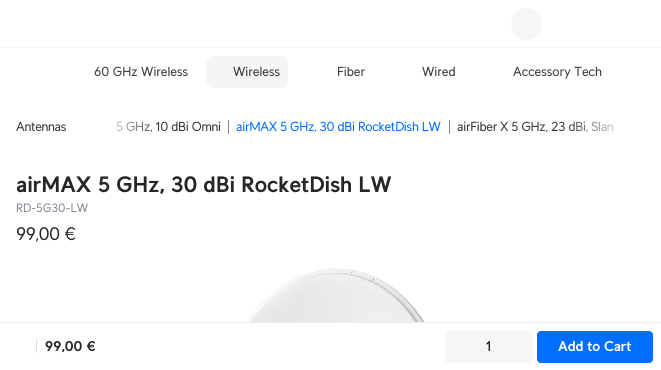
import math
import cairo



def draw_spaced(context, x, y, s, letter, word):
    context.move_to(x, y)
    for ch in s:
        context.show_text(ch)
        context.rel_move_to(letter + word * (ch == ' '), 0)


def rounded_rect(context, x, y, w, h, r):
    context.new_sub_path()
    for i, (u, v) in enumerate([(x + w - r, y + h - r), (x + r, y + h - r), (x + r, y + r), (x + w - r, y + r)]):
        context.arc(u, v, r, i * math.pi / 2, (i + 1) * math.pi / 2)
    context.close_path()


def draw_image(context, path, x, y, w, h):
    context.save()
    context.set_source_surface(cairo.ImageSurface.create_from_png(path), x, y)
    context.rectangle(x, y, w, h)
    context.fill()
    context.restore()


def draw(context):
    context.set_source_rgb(1, 1, 1)
    context.paint()
    context.set_source_rgb(242 / 255, 242 / 255, 242 / 255)
    context.rectangle(0, 47, 661, 1)
    context.fill()
    context.set_source_rgb(246 / 255, 246 / 255, 248 / 255)
    context.arc(527, 24, 16, 0, 2 * math.pi)
    context.fill()
    context.set_source_rgb(244 / 255, 245 / 255, 246 / 255)
    rounded_rect(context, 206, 56, 82, 32, 8)
    context.fill()
    context.set_source_rgb(128 / 255, 136 / 255, 147 / 255)
    rounded_rect(context, 228, 120, 1, 14, 0.5)
    context.fill()
    rounded_rect(context, 449, 120, 1, 14, 0.5)
    context.fill()
    draw_image(context, "images/1.png", 244, 268, 181, 54)
    context.set_source_rgb(237 / 255, 237 / 255, 240 / 255)
    context.rectangle(0, 322, 661, 1)
    context.fill()
    context.set_source_rgb(219 / 255, 220 / 255, 225 / 255)
    context.rectangle(36, 339, 1, 14)
    context.fill()
    context.set_source_rgb(246 / 255, 246 / 255, 248 / 255)
    rounded_rect(context, 445, 331, 88, 32, 4)
    context.fill()
    context.set_source_rgb(0, 111 / 255, 1)
    rounded_rect(context, 537.5, 331.5, 115, 31, 3.5)
    context.fill_preserve()
    context.set_line_width(1)
    context.stroke()
    context.select_font_face("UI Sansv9")
    context.set_font_size(13)
    context.set_source_rgb(57 / 255, 57 / 255, 57 / 255)
    context.move_to(94, 76)
    context.show_text("60 GHz Wireless")
    context.move_to(233, 76)
    context.show_text("Wireless")
    context.move_to(337, 76)
    context.show_text("Fiber")
    context.move_to(422, 76)
    context.show_text("Wired")
    context.move_to(513, 76)
    context.show_text("Accessory Tech")
    draw_spaced(context, 16, 131, "Antennas", -0.25, 0)
    draw_spaced(context, 116, 131, "5 GHz, 10 dBi Omni", -0.25, 0)
    context.set_source_rgb(0, 111 / 255, 1)
    draw_spaced(context, 236, 131, "airMAX 5 GHz, 30 dBi RocketDish LW", -0.25, 0)
    context.set_source_rgb(57 / 255, 57 / 255, 57 / 255)
    draw_spaced(context, 457, 131, "airFiber X 5 GHz, 23 dBi, Slan", -0.25, 0)
    gradient = cairo.LinearGradient(81, 128, 161, 128)
    gradient.add_color_stop_rgba(0.2, 1, 1, 1, 1)
    gradient.add_color_stop_rgba(1, 1, 1, 1, 0)
    context.set_source(gradient)
    context.rectangle(116, 121, 43, 11)
    context.fill()
    gradient = cairo.LinearGradient(646, 128, 566, 128)
    gradient.add_color_stop_rgba(0.2, 1, 1, 1, 1)
    gradient.add_color_stop_rgba(1, 1, 1, 1, 0)
    context.set_source(gradient)
    context.rectangle(568, 121, 45, 12)
    context.fill()
    context.select_font_face("UI Sansv9", cairo.FontSlant.NORMAL, cairo.FontWeight.BOLD)
    context.set_font_size(22)
    context.set_source_rgb(38 / 255, 38 / 255, 38 / 255)
    context.move_to(16, 192)
    context.show_text("airMAX 5 GHz, 30 dBi RocketDish LW")
    context.select_font_face("UI Sansv9")
    context.set_font_size(12)
    context.set_source_rgb(128 / 255, 136 / 255, 147 / 255)
    context.move_to(16, 212)
    context.show_text("RD-5G30-LW")
    context.set_font_size(18)
    context.set_source_rgb(38 / 255, 38 / 255, 38 / 255)
    draw_spaced(context, 16, 240, "99,00 €", -0.5, 0)
    context.select_font_face("UI Sansv9", cairo.FontSlant.NORMAL, cairo.FontWeight.BOLD)
    context.set_font_size(14)
    context.move_to(45, 351)
    context.show_text("99,00 €")
    context.select_font_face("UI Sansv9")
    context.set_source_rgb(0, 0, 0)
    context.move_to(486, 351)
    context.show_text("1")
    context.select_font_face("UI Sansv9", cairo.FontSlant.NORMAL, cairo.FontWeight.BOLD)
    context.set_source_rgb(1, 1, 1)
    context.move_to(558, 351)
    context.show_text("Add to Cart")


surface = cairo.ImageSurface(cairo.Format.RGB24, 661, 370)
context = cairo.Context(surface)
options = cairo.FontOptions()
options.set_hint_metrics(cairo.HintMetrics.OFF)
options.set_hint_style(cairo.HintStyle.NONE)
context.set_font_options(options)
context.set_miter_limit(4)
draw(context)
surface.write_to_png("out.png")
